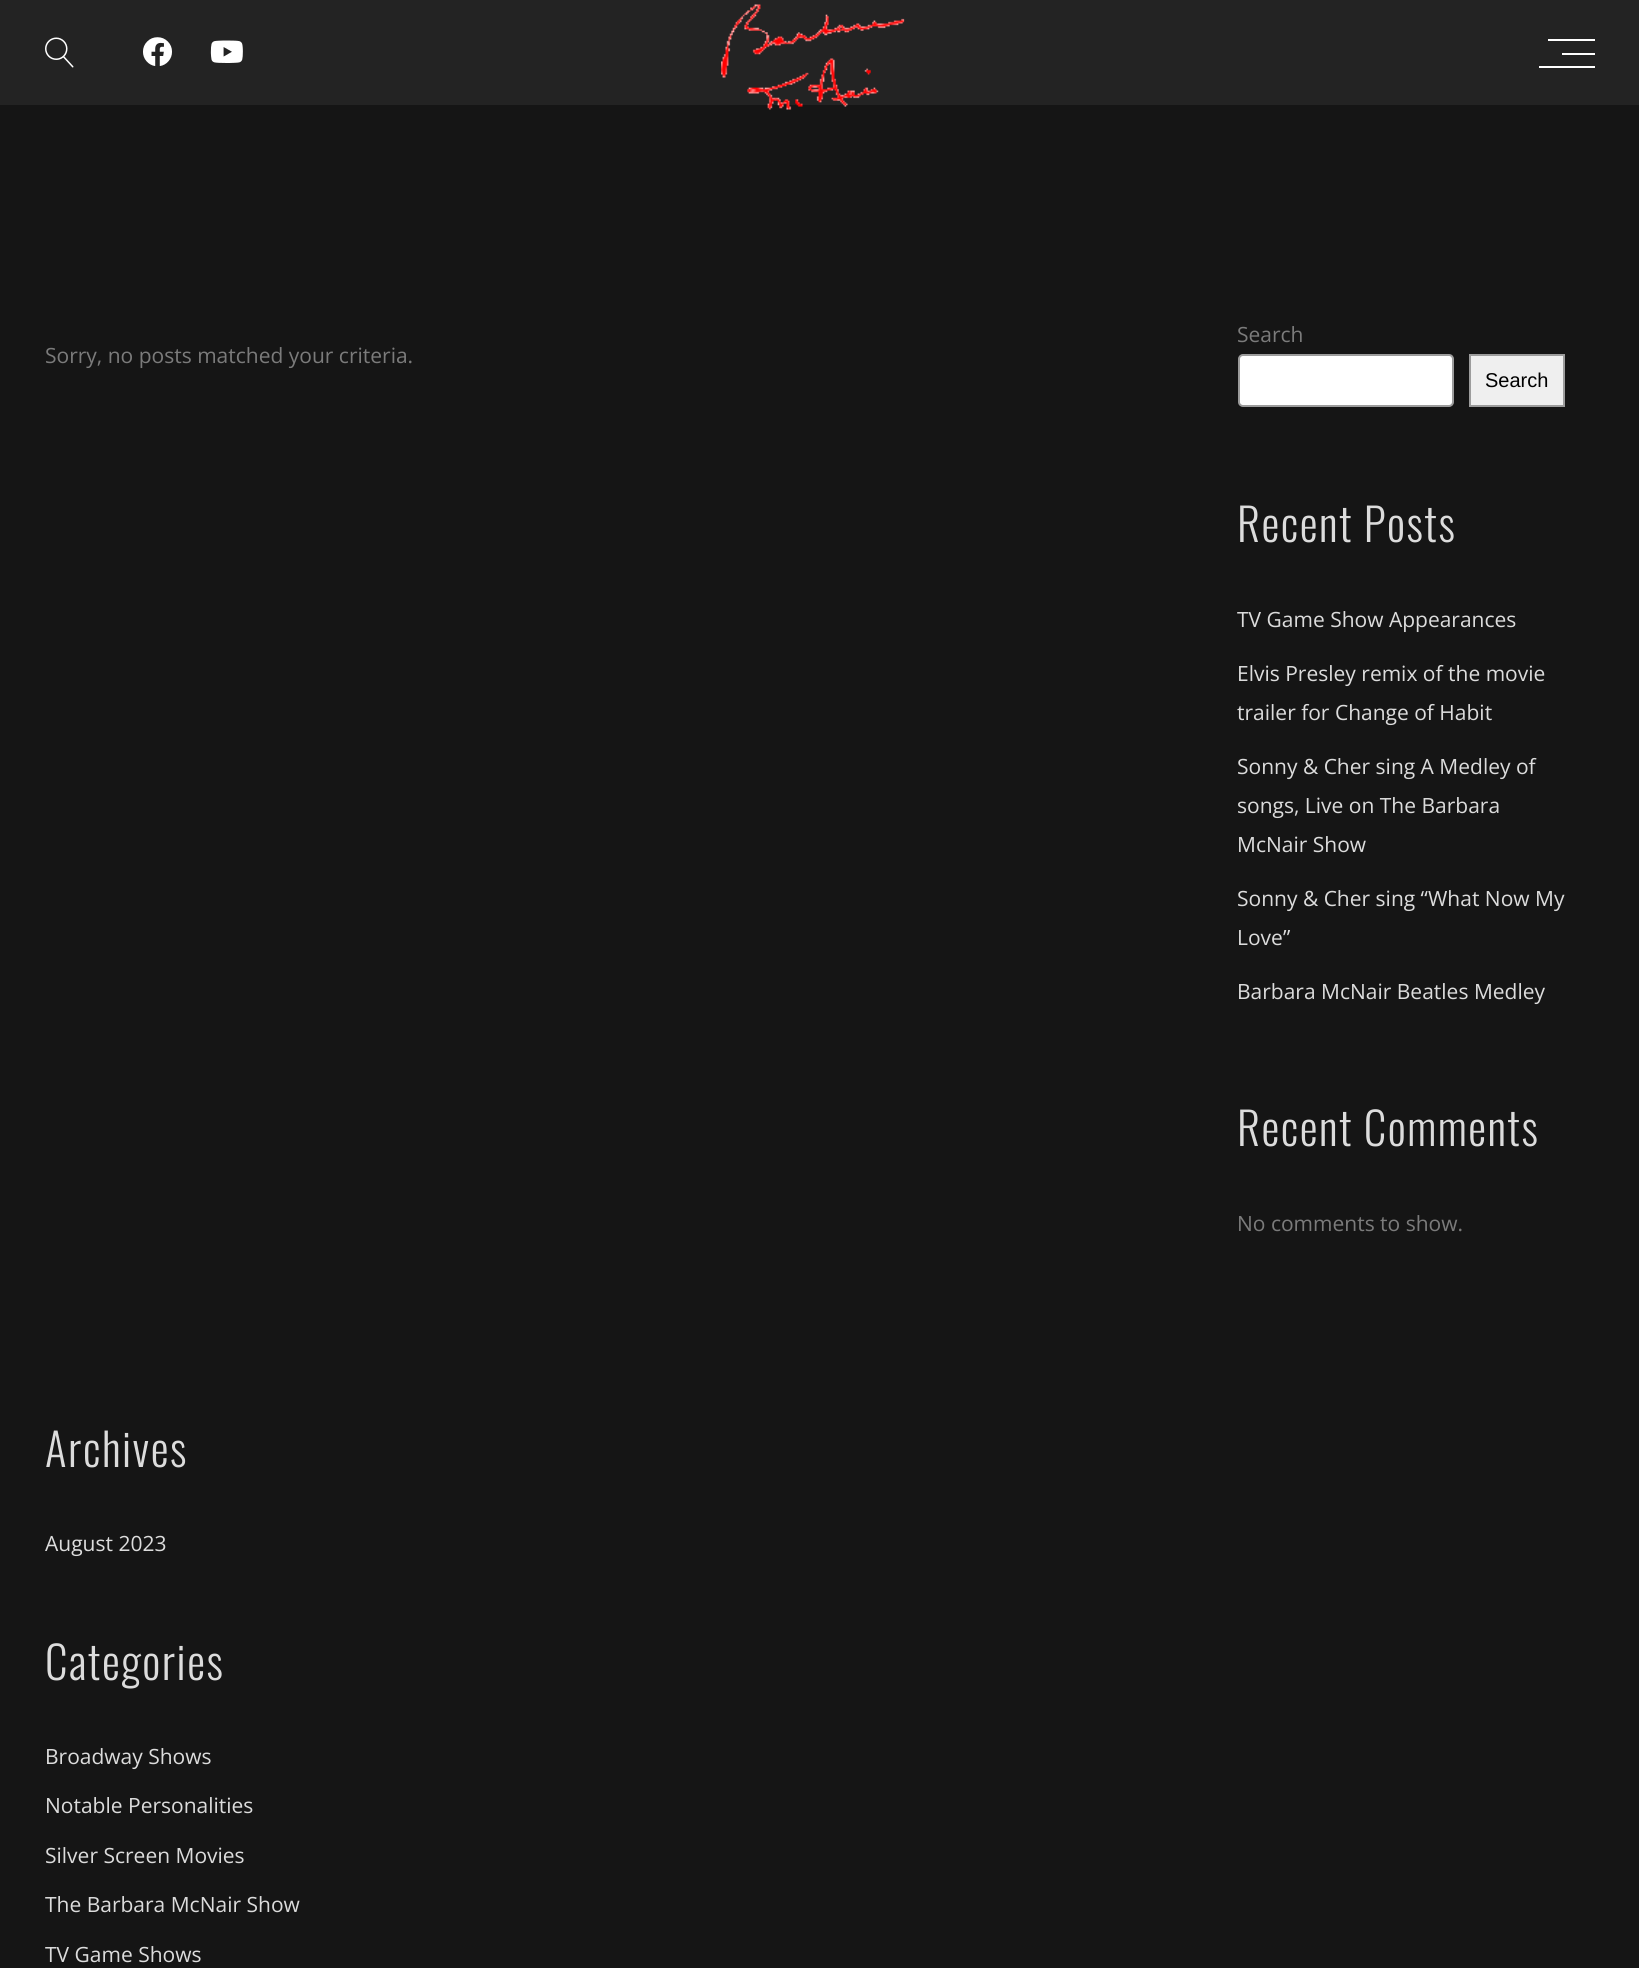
import math
import cairo



def draw_spaced(context, x, y, s, letter, word):
    context.move_to(x, y)
    for ch in s:
        context.show_text(ch)
        context.rel_move_to(letter + word * (ch == ' '), 0)


def rounded_rect(context, x, y, w, h, r):
    context.new_sub_path()
    for i, (u, v) in enumerate([(x + w - r, y + h - r), (x + r, y + h - r), (x + r, y + r), (x + w - r, y + r)]):
        context.arc(u, v, r, i * math.pi / 2, (i + 1) * math.pi / 2)
    context.close_path()


def draw_image(context, path, x, y, w, h):
    context.save()
    context.set_source_surface(cairo.ImageSurface.create_from_png(path), x, y)
    context.rectangle(x, y, w, h)
    context.fill()
    context.restore()


def draw(context):
    context.set_source_rgb(21 / 255, 21 / 255, 21 / 255)
    context.paint()
    context.set_source_rgb(35 / 255, 35 / 255, 35 / 255)
    context.rectangle(0, 0, 1639, 105)
    context.fill()
    draw_image(context, "images/1.png", 45, 37, 29, 31)
    draw_image(context, "images/2.png", 143, 37, 29, 29)
    draw_image(context, "images/3.png", 210, 40, 33, 23)
    draw_image(context, "images/4.png", 721, 4, 184, 106)
    context.set_source_rgb(1, 1, 1)
    context.rectangle(1548, 39, 47, 2)
    context.fill()
    context.rectangle(1562, 53, 33, 2)
    context.fill()
    context.rectangle(1539, 66, 56, 2)
    context.fill()
    rounded_rect(context, 1239, 355, 214, 51, 4)
    context.fill_preserve()
    context.set_source_rgb(156 / 255, 156 / 255, 156 / 255)
    context.stroke()
    context.set_source_rgb(239 / 255, 239 / 255, 239 / 255)
    context.rectangle(1470, 355, 94, 51)
    context.fill_preserve()
    context.set_source_rgb(156 / 255, 156 / 255, 156 / 255)
    context.stroke()
    context.select_font_face("Open Sans")
    context.set_font_size(21)
    context.set_source_rgb(123 / 255, 123 / 255, 123 / 255)
    context.move_to(45, 363)
    context.show_text("Sorry, no posts matched your criteria.")
    context.move_to(1237, 342)
    context.show_text("Search")
    context.select_font_face("Liberation Sans")
    context.set_font_size(20)
    context.set_source_rgb(0, 0, 0)
    context.move_to(1485, 387)
    context.show_text("Search")
    context.select_font_face("Oswald Light")
    context.set_font_size(45)
    context.set_source_rgb(220 / 255, 220 / 255, 220 / 255)
    draw_spaced(context, 1237, 542, "Recent Posts", 1.5, 0)
    context.select_font_face("Open Sans")
    context.set_font_size(21)
    context.move_to(1237, 627)
    context.show_text("TV Game Show Appearances")
    context.move_to(1237, 681)
    context.show_text("Elvis Presley remix of the movie")
    context.move_to(1237, 720)
    context.show_text("trailer for Change of Habit")
    context.move_to(1237, 774)
    context.show_text("Sonny & Cher sing A Medley of")
    context.move_to(1237, 813)
    context.show_text("songs, Live on The Barbara")
    context.move_to(1237, 852)
    context.show_text("McNair Show")
    context.move_to(1237, 906)
    context.show_text("Sonny & Cher sing “What Now My")
    context.move_to(1237, 945)
    context.show_text("Love”")
    context.move_to(1237, 999)
    context.show_text("Barbara McNair Beatles Medley")
    context.select_font_face("Oswald Light")
    context.set_font_size(45)
    draw_spaced(context, 1237, 1146, "Recent Comments", 1.5, 0)
    context.select_font_face("Open Sans")
    context.set_font_size(21)
    context.set_source_rgb(123 / 255, 123 / 255, 123 / 255)
    context.move_to(1237, 1231)
    context.show_text("No comments to show.")
    context.select_font_face("Oswald Light")
    context.set_font_size(45)
    context.set_source_rgb(220 / 255, 220 / 255, 220 / 255)
    draw_spaced(context, 45, 1467, "Archives", 1.5, 0)
    context.select_font_face("Open Sans")
    context.set_font_size(21)
    context.move_to(45, 1551)
    context.show_text("August 2023")
    context.select_font_face("Oswald Light")
    context.set_font_size(45)
    draw_spaced(context, 45, 1680, "Categories", 1.5, 0)
    context.select_font_face("Open Sans")
    context.set_font_size(21)
    context.move_to(45, 1764)
    context.show_text("Broadway Shows")
    context.move_to(45, 1813)
    context.show_text("Notable Personalities")
    context.move_to(45, 1863)
    context.show_text("Silver Screen Movies")
    context.move_to(45, 1912)
    context.show_text("The Barbara McNair Show")
    context.move_to(45, 1962)
    context.show_text("TV Game Shows")


surface = cairo.ImageSurface(cairo.Format.RGB24, 1639, 1968)
context = cairo.Context(surface)
options = cairo.FontOptions()
options.set_hint_metrics(cairo.HintMetrics.OFF)
options.set_hint_style(cairo.HintStyle.NONE)
context.set_font_options(options)
context.set_miter_limit(4)
draw(context)
surface.write_to_png("out.png")
